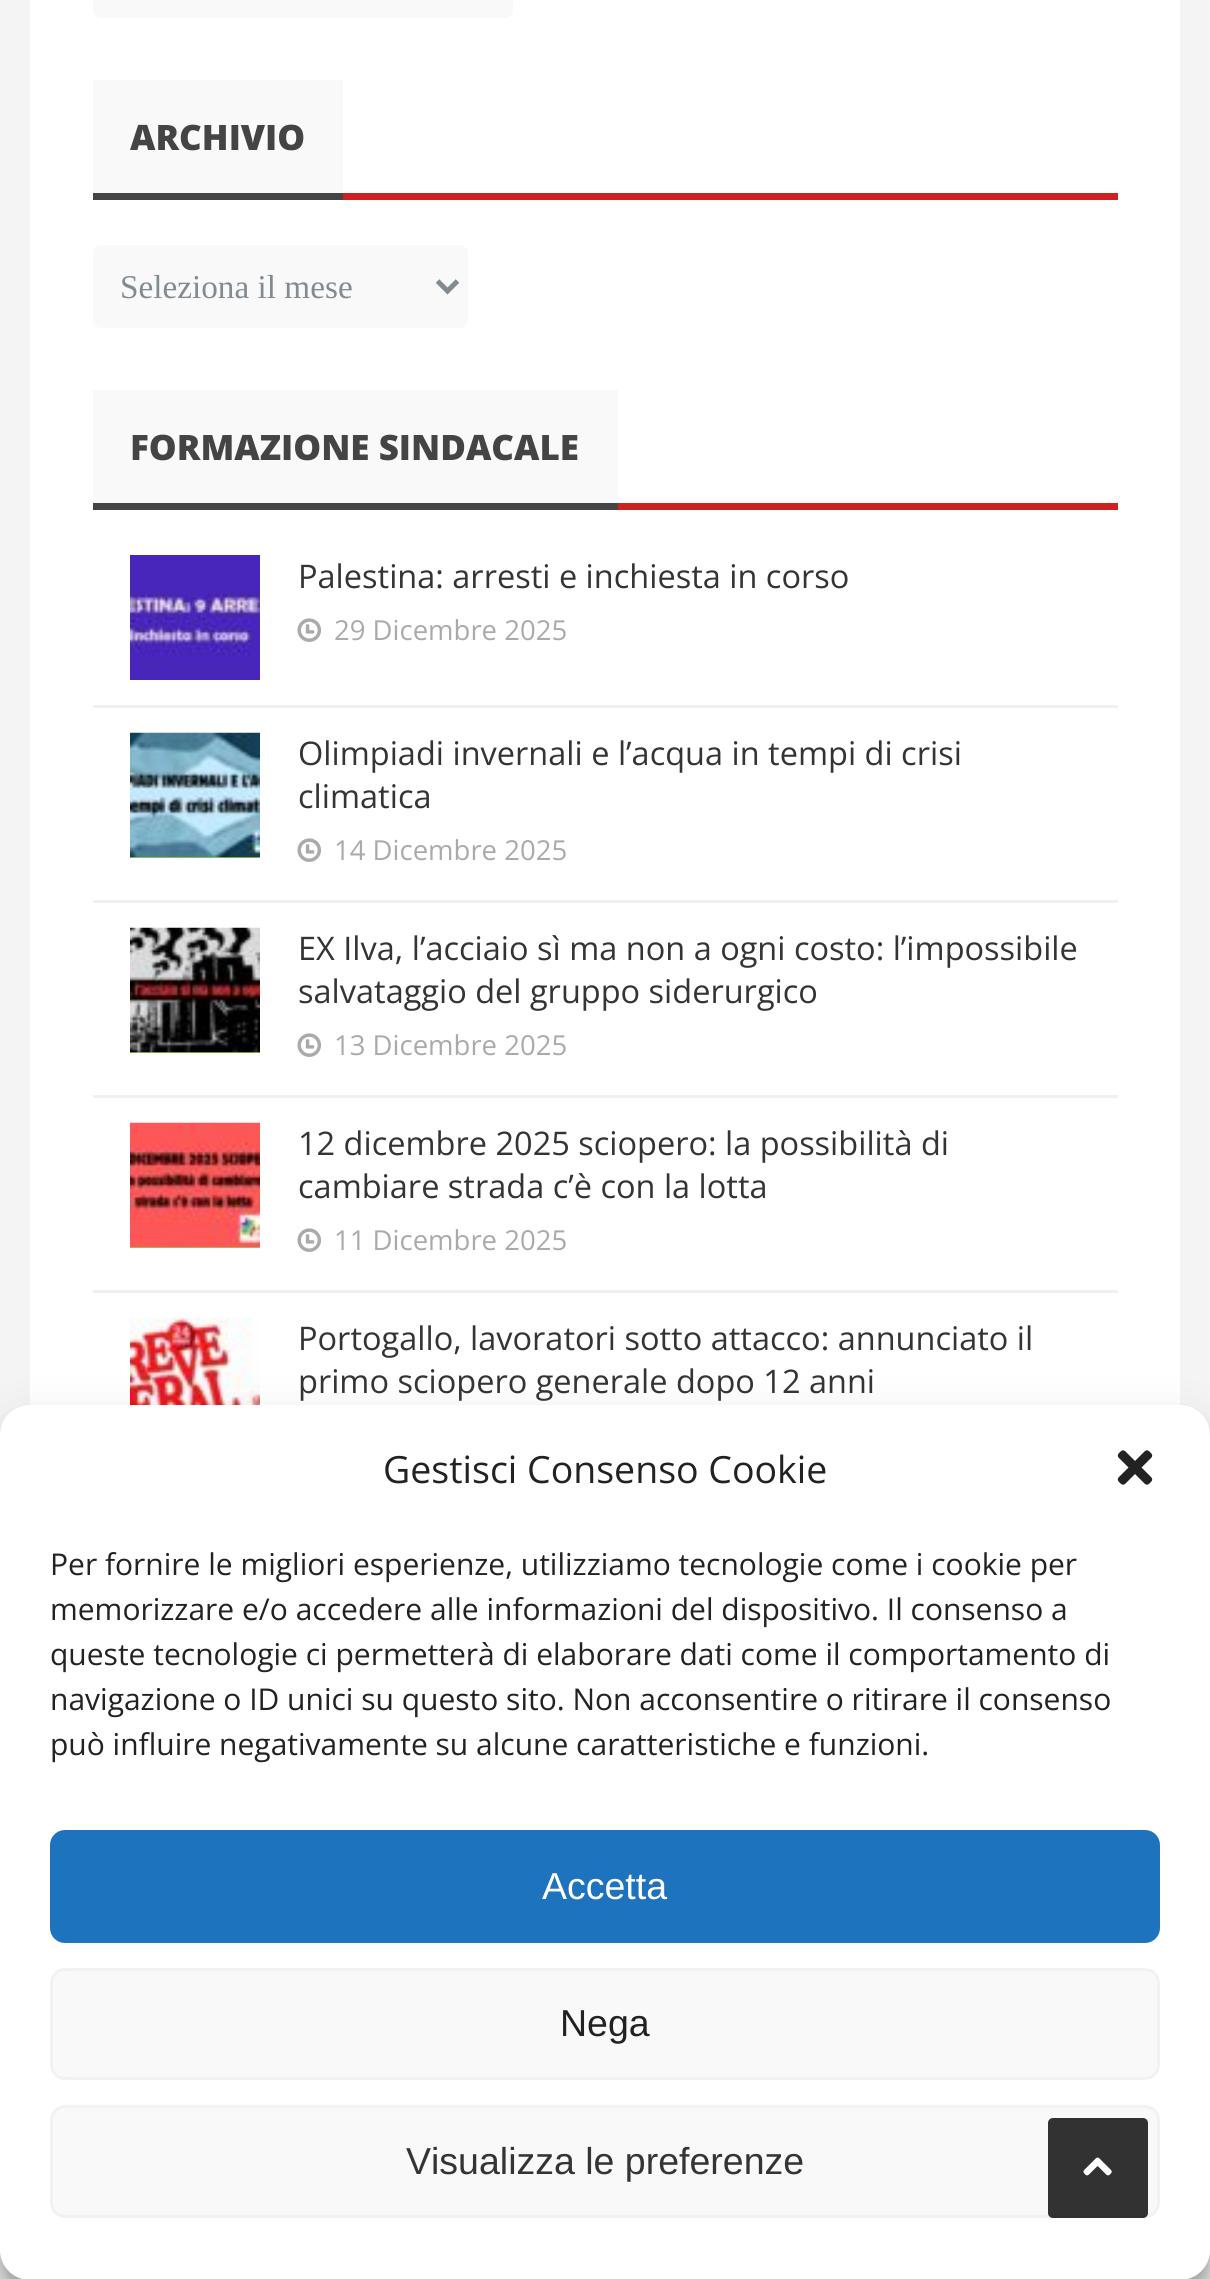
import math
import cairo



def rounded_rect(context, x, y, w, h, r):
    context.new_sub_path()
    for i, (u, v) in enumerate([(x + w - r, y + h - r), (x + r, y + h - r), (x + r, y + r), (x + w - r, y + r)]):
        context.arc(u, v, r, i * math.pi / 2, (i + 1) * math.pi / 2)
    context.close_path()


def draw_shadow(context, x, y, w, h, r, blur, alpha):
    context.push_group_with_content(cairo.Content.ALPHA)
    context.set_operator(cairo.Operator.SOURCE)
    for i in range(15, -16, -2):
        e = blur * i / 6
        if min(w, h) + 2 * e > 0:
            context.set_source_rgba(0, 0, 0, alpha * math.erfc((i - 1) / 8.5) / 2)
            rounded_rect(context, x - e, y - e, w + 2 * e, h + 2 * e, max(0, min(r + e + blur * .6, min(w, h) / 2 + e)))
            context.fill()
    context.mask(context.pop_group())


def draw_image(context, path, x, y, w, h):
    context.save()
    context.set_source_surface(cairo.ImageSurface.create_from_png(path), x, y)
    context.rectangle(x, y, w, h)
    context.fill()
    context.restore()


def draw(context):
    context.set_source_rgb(244 / 255, 244 / 255, 244 / 255)
    context.paint()
    context.set_source_rgb(1, 1, 1)
    context.rectangle(30, 0, 1150, 1405)
    context.fill()
    context.set_source_rgb(249 / 255, 249 / 255, 249 / 255)
    rounded_rect(context, 93, -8, 420, 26, 8)
    context.fill()
    context.set_source_rgb(205 / 255, 33 / 255, 34 / 255)
    context.rectangle(343, 193, 775, 7)
    context.fill()
    context.set_source_rgb(249 / 255, 249 / 255, 249 / 255)
    context.rectangle(93, 80, 250, 113)
    context.fill()
    context.set_source_rgb(68 / 255, 68 / 255, 68 / 255)
    context.rectangle(93, 193, 250, 7)
    context.fill()
    context.set_source_rgb(249 / 255, 249 / 255, 249 / 255)
    rounded_rect(context, 93, 245, 375, 83, 8)
    context.fill()
    context.new_path()
    context.move_to(437.5, 281)
    context.line_to(447.5, 291)
    context.line_to(457.5, 281)
    context.set_source_rgb(129 / 255, 139 / 255, 146 / 255)
    context.set_line_width(5)
    context.stroke()
    context.set_source_rgb(205 / 255, 33 / 255, 34 / 255)
    context.rectangle(618, 503, 500, 7)
    context.fill()
    context.set_source_rgb(249 / 255, 249 / 255, 249 / 255)
    context.rectangle(93, 390, 525, 113)
    context.fill()
    context.set_source_rgb(68 / 255, 68 / 255, 68 / 255)
    context.rectangle(93, 503, 525, 7)
    context.fill()
    context.set_source_rgb(240 / 255, 240 / 255, 240 / 255)
    context.rectangle(93, 705, 1025, 3)
    context.fill()
    draw_image(context, "images/1.png", 130, 555, 130, 125)
    draw_image(context, "images/2.png", 297, 618, 24, 24)
    context.rectangle(93, 900, 1025, 3)
    context.fill()
    context.set_source_rgb(160 / 255, 206 / 255, 78 / 255)
    context.rectangle(130, 857, 130, 1)
    context.fill()
    draw_image(context, "images/3.png", 130, 732, 130, 126)
    draw_image(context, "images/2.png", 297, 838, 24, 24)
    context.set_source_rgb(240 / 255, 240 / 255, 240 / 255)
    context.rectangle(93, 1095, 1025, 3)
    context.fill()
    context.set_source_rgb(160 / 255, 206 / 255, 78 / 255)
    context.rectangle(130, 1052, 130, 1)
    context.fill()
    draw_image(context, "images/4.png", 130, 927, 130, 126)
    draw_image(context, "images/2.png", 297, 1033, 24, 24)
    context.set_source_rgb(240 / 255, 240 / 255, 240 / 255)
    context.rectangle(93, 1290, 1025, 3)
    context.fill()
    context.set_source_rgb(160 / 255, 206 / 255, 78 / 255)
    context.rectangle(130, 1247, 130, 1)
    context.fill()
    draw_image(context, "images/5.png", 130, 1122, 130, 126)
    draw_image(context, "images/2.png", 297, 1228, 24, 24)
    draw_image(context, "images/6.png", 130, 1317, 130, 88)
    context.set_source_rgb(0, 0, 0)
    draw_shadow(context, 0, 1420, 1210, 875, 30, 7.5, 0.23)
    draw_shadow(context, 0, 1430, 1210, 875, 30, 25, 0.19)
    context.set_source_rgb(1, 1, 1)
    rounded_rect(context, 0, 1405, 1210, 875, 30)
    context.fill()
    draw_image(context, "images/7.png", 1117, 1450, 36, 35)
    context.set_source_rgb(30 / 255, 115 / 255, 190 / 255)
    rounded_rect(context, 51.5, 1831.5, 1107, 110, 13.5)
    context.fill_preserve()
    context.set_line_width(3)
    context.stroke()
    context.set_source_rgb(249 / 255, 249 / 255, 249 / 255)
    rounded_rect(context, 51.5, 1969.5, 1107, 109, 13.5)
    context.fill_preserve()
    context.set_source_rgb(242 / 255, 242 / 255, 242 / 255)
    context.stroke()
    context.set_source_rgb(249 / 255, 249 / 255, 249 / 255)
    rounded_rect(context, 51.5, 2106.5, 1107, 110, 13.5)
    context.fill_preserve()
    context.set_source_rgb(242 / 255, 242 / 255, 242 / 255)
    context.stroke()
    context.set_source_rgba(0, 0, 0, 0.8)
    rounded_rect(context, 1048, 2118, 100, 100, 5)
    context.fill()
    draw_image(context, "images/8.png", 1083, 2157, 29, 19)
    context.select_font_face("Open Sans ExtraBold")
    context.set_font_size(35)
    context.set_source_rgb(68 / 255, 68 / 255, 68 / 255)
    context.move_to(130, 150)
    context.show_text("ARCHIVIO")
    context.select_font_face("Liberation Serif")
    context.set_font_size(33.25)
    context.set_source_rgb(129 / 255, 139 / 255, 146 / 255)
    context.move_to(120, 298)
    context.show_text("Seleziona il mese")
    context.select_font_face("Open Sans ExtraBold")
    context.set_font_size(35)
    context.set_source_rgb(68 / 255, 68 / 255, 68 / 255)
    context.move_to(130, 460)
    context.show_text("FORMAZIONE SINDACALE")
    context.select_font_face("Open Sans")
    context.set_font_size(32.5)
    context.set_source_rgb(52 / 255, 52 / 255, 52 / 255)
    context.move_to(298, 588)
    context.show_text("Palestina: arresti e inchiesta in corso")
    context.set_font_size(27.5)
    context.set_source_rgb(170 / 255, 170 / 255, 170 / 255)
    context.move_to(334, 640)
    context.show_text("29 Dicembre 2025")
    context.set_font_size(32.5)
    context.set_source_rgb(52 / 255, 52 / 255, 52 / 255)
    context.move_to(298, 765)
    context.show_text("Olimpiadi invernali e l’acqua in tempi di crisi")
    context.move_to(298, 808)
    context.show_text("climatica")
    context.set_font_size(27.5)
    context.set_source_rgb(170 / 255, 170 / 255, 170 / 255)
    context.move_to(334, 860)
    context.show_text("14 Dicembre 2025")
    context.set_font_size(32.5)
    context.set_source_rgb(52 / 255, 52 / 255, 52 / 255)
    context.move_to(298, 960)
    context.show_text("EX Ilva, l’acciaio sì ma non a ogni costo: l’impossibile")
    context.move_to(298, 1003)
    context.show_text("salvataggio del gruppo siderurgico")
    context.set_font_size(27.5)
    context.set_source_rgb(170 / 255, 170 / 255, 170 / 255)
    context.move_to(334, 1055)
    context.show_text("13 Dicembre 2025")
    context.set_font_size(32.5)
    context.set_source_rgb(52 / 255, 52 / 255, 52 / 255)
    context.move_to(298, 1155)
    context.show_text("12 dicembre 2025 sciopero: la possibilità di")
    context.move_to(298, 1198)
    context.show_text("cambiare strada c’è con la lotta")
    context.set_font_size(27.5)
    context.set_source_rgb(170 / 255, 170 / 255, 170 / 255)
    context.move_to(334, 1250)
    context.show_text("11 Dicembre 2025")
    context.set_font_size(32.5)
    context.set_source_rgb(52 / 255, 52 / 255, 52 / 255)
    context.move_to(298, 1350)
    context.show_text("Portogallo, lavoratori sotto attacco: annunciato il")
    context.move_to(298, 1393)
    context.show_text("primo sciopero generale dopo 12 anni")
    context.set_font_size(37.5)
    context.set_source_rgb(34 / 255, 34 / 255, 34 / 255)
    context.move_to(383, 1483)
    context.show_text("Gestisci Consenso Cookie")
    context.set_font_size(30)
    context.move_to(50, 1575)
    context.show_text("Per fornire le migliori esperienze, utilizziamo tecnologie come i cookie per")
    context.move_to(50, 1620)
    context.show_text("memorizzare e/o accedere alle informazioni del dispositivo. Il consenso a")
    context.move_to(50, 1665)
    context.show_text("queste tecnologie ci permetterà di elaborare dati come il comportamento di")
    context.move_to(50, 1710)
    context.show_text("navigazione o ID unici su questo sito. Non acconsentire o ritirare il consenso")
    context.move_to(50, 1755)
    context.show_text("può influire negativamente su alcune caratteristiche e funzioni.")
    context.select_font_face("Liberation Sans")
    context.set_font_size(37.5)
    context.set_source_rgb(1, 1, 1)
    context.move_to(542, 1899)
    context.show_text("Accetta")
    context.set_source_rgb(34 / 255, 34 / 255, 34 / 255)
    context.move_to(560, 2036)
    context.show_text("Nega")
    context.set_source_rgb(52 / 255, 52 / 255, 52 / 255)
    context.move_to(406, 2174)
    context.show_text("Visualizza le preferenze")


surface = cairo.ImageSurface(cairo.Format.RGB24, 1210, 2279)
context = cairo.Context(surface)
options = cairo.FontOptions()
options.set_hint_metrics(cairo.HintMetrics.OFF)
options.set_hint_style(cairo.HintStyle.NONE)
context.set_font_options(options)
context.set_miter_limit(4)
draw(context)
surface.write_to_png("out.png")
